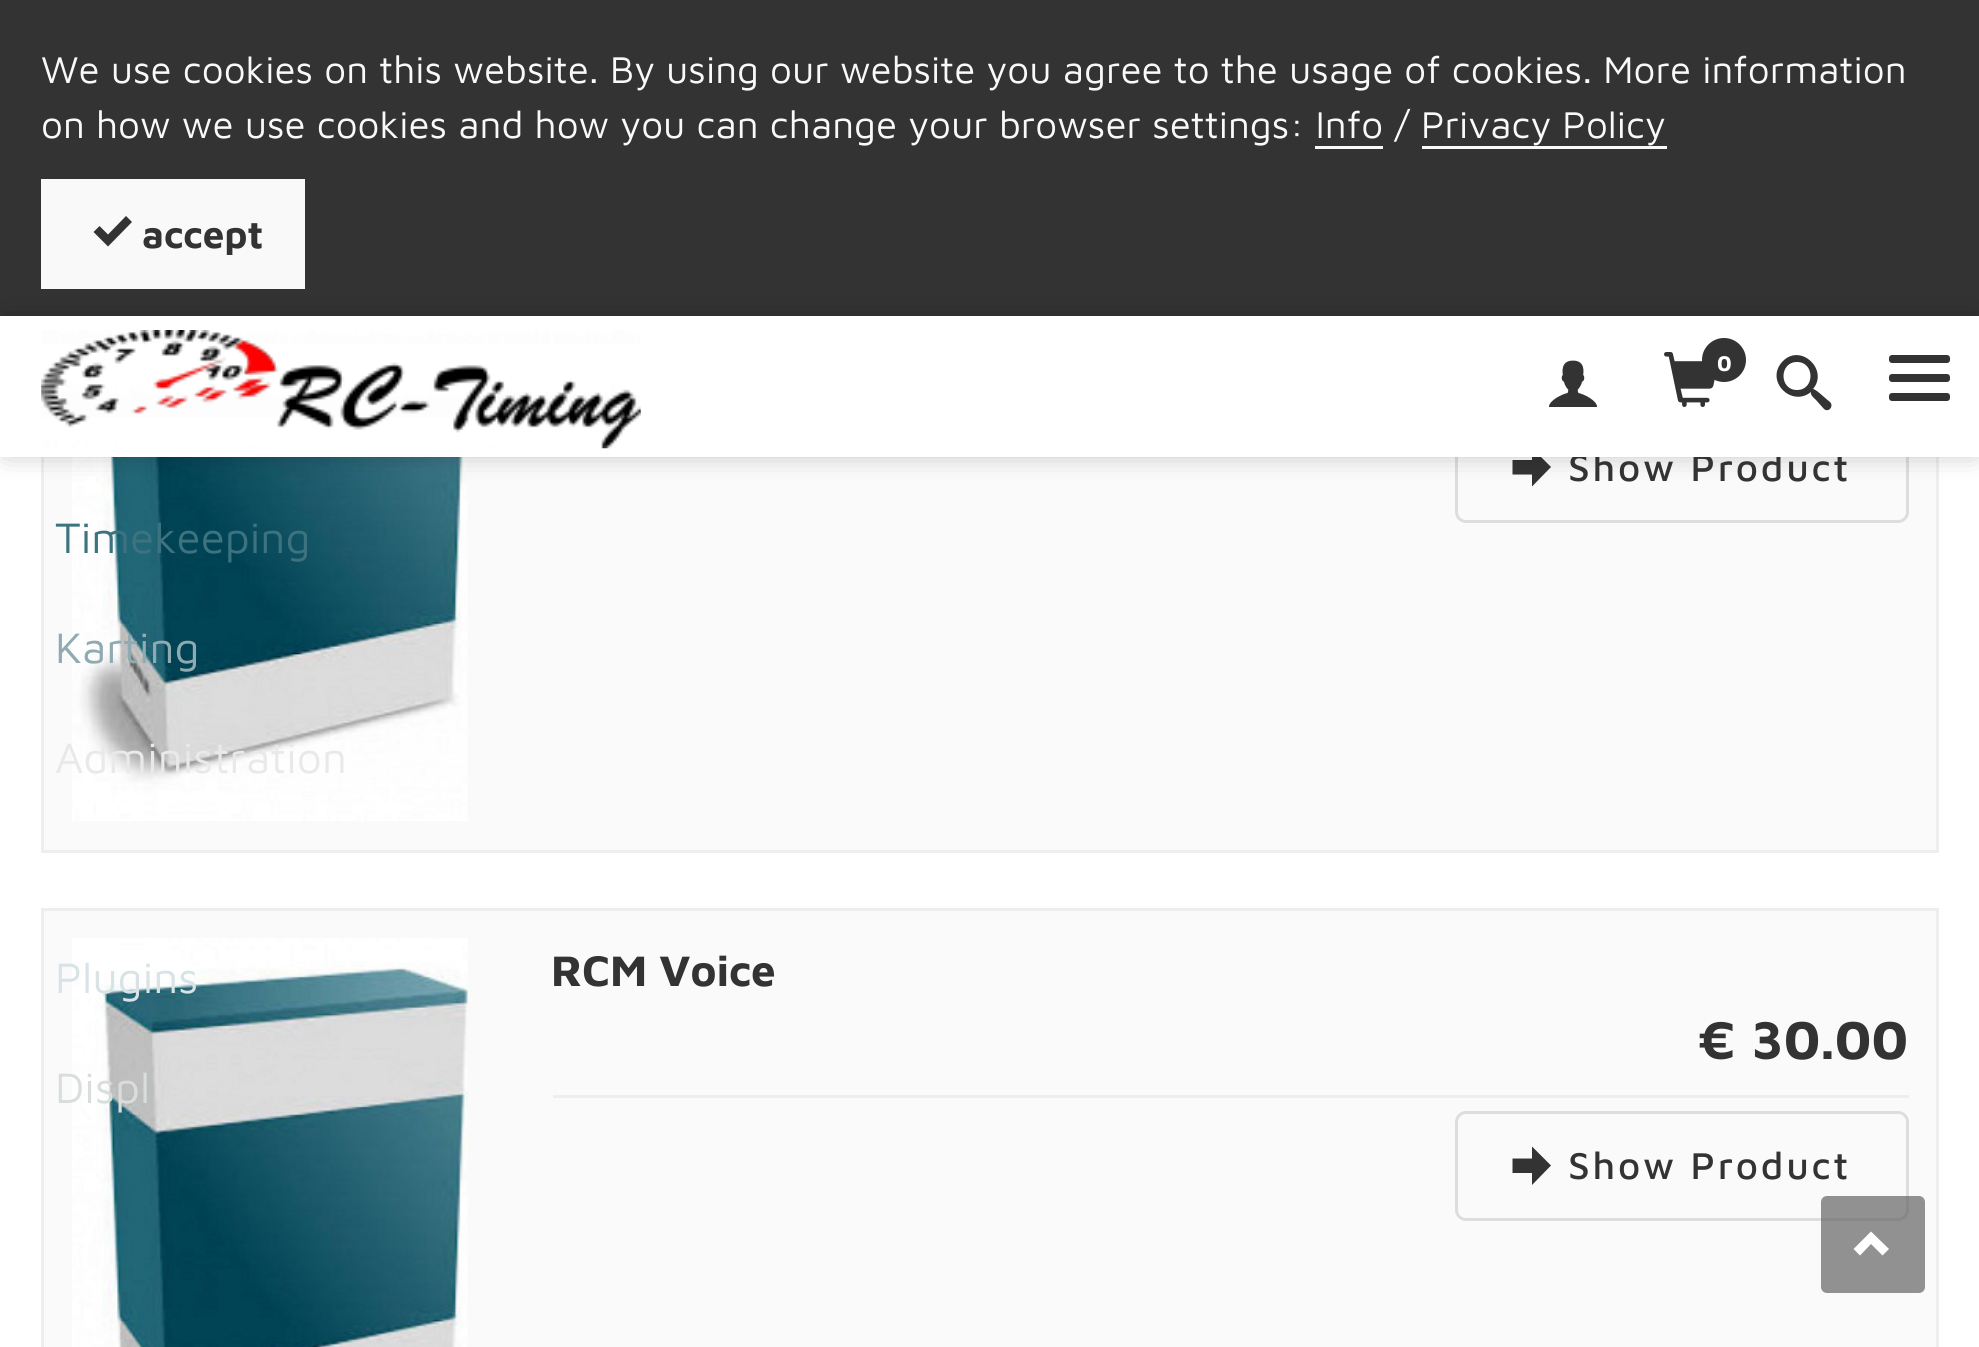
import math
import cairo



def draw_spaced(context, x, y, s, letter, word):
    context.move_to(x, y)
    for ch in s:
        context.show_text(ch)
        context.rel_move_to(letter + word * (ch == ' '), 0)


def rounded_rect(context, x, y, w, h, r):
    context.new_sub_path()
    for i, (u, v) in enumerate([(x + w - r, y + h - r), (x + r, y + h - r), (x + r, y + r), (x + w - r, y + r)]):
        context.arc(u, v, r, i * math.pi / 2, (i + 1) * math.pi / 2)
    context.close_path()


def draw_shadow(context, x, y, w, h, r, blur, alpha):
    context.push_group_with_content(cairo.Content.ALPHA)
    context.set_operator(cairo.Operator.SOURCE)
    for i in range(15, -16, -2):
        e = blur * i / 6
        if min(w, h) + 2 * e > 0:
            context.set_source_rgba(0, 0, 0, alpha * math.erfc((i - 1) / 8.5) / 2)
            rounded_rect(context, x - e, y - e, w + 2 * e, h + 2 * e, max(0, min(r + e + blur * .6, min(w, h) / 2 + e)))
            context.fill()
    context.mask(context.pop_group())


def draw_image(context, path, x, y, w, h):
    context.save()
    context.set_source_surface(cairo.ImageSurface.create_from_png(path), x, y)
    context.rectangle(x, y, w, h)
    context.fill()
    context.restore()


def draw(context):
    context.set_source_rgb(1, 1, 1)
    context.paint()
    context.set_source_rgb(250 / 255, 250 / 255, 250 / 255)
    context.rectangle(44, 457, 1892, 393)
    context.fill()
    context.rectangle(42.5, 213.5, 1895, 638)
    context.set_source_rgb(238 / 255, 238 / 255, 238 / 255)
    context.set_line_width(3)
    context.stroke()
    context.set_source_rgb(51 / 255, 51 / 255, 51 / 255)
    context.rectangle(0, 0, 1979, 316)
    context.fill()
    context.set_source_rgb(249 / 255, 249 / 255, 249 / 255)
    context.rectangle(1315, 146, 68, 3)
    context.fill()
    context.rectangle(1422, 146, 245, 3)
    context.fill()
    context.rectangle(41, 179, 264, 110)
    context.fill()
    context.set_source_rgb(51 / 255, 51 / 255, 51 / 255)
    context.new_path()
    context.move_to(126, 216)
    context.line_to(108, 234.5)
    context.line_to(99.5, 226)
    context.line_to(93.5, 232)
    context.line_to(108, 246.5)
    context.line_to(132, 222)
    context.close_path()
    context.fill()
    draw_image(context, "images/4.png", 72, 457, 396, 364)
    context.set_source_rgb(250 / 255, 250 / 255, 250 / 255)
    rounded_rect(context, 1456.5, 414.5, 451, 107, 9.5)
    context.fill_preserve()
    context.set_source_rgb(221 / 255, 221 / 255, 221 / 255)
    context.stroke()
    context.set_source_rgb(51 / 255, 51 / 255, 51 / 255)
    context.new_path()
    context.move_to(1551, 467)
    context.line_to(1532, 448)
    context.line_to(1532, 460)
    context.line_to(1512.5, 460)
    context.line_to(1512.5, 474.5)
    context.line_to(1532, 474.5)
    context.line_to(1532, 486.5)
    context.close_path()
    context.fill()
    context.set_source_rgb(0, 0, 0)
    draw_shadow(context, 6, 322, 1969, 129, 0, 14, 0.3)
    context.set_source_rgb(250 / 255, 250 / 255, 250 / 255)
    context.rectangle(42.5, 909.5, 1895, 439)
    context.fill_preserve()
    context.set_source_rgb(238 / 255, 238 / 255, 238 / 255)
    context.stroke()
    draw_image(context, "images/5.png", 72, 938, 396, 409)
    context.rectangle(553, 1095, 1356, 3)
    context.fill()
    rounded_rect(context, 1456.5, 1112.5, 451, 107, 9.5)
    context.set_source_rgb(221 / 255, 221 / 255, 221 / 255)
    context.stroke()
    context.set_source_rgb(51 / 255, 51 / 255, 51 / 255)
    context.new_path()
    context.move_to(1551, 1165.5)
    context.line_to(1532, 1146.5)
    context.line_to(1532, 1158.5)
    context.line_to(1512.5, 1158.5)
    context.line_to(1512.5, 1173)
    context.line_to(1532, 1173)
    context.line_to(1532, 1185)
    context.close_path()
    context.fill()
    context.set_source_rgba(100 / 255, 100 / 255, 100 / 255, 0.7)
    rounded_rect(context, 1821, 1196, 104, 97, 6)
    context.fill()
    context.set_source_rgb(1, 1, 1)
    context.new_path()
    context.move_to(1889, 1249)
    context.line_to(1882.5, 1255.5)
    context.line_to(1871, 1244)
    context.line_to(1860, 1255.5)
    context.line_to(1853.5, 1249)
    context.line_to(1871, 1231.5)
    context.close_path()
    context.fill()
    context.select_font_face("Maven Pro")
    context.set_font_size(38.5)
    context.set_source_rgb(249 / 255, 249 / 255, 249 / 255)
    context.move_to(41, 83)
    context.show_text("We use cookies on this website. By using our website you agree to the usage of cookies. More information")
    context.move_to(41, 138)
    context.show_text("on how we use cookies and how you can change your browser settings: Info / Privacy Policy")
    context.select_font_face("Maven Pro", cairo.FontSlant.NORMAL, cairo.FontWeight.BOLD)
    context.set_source_rgb(51 / 255, 51 / 255, 51 / 255)
    context.move_to(142, 248)
    context.show_text("accept")
    context.select_font_face("Maven Pro")
    context.set_font_size(44)
    context.set_source_rgb(61 / 255, 114 / 255, 127 / 255)
    context.move_to(55, 553)
    context.show_text("Timekeeping")
    context.set_source_rgb(143 / 255, 170 / 255, 177 / 255)
    context.move_to(55, 663)
    context.show_text("Karting")
    context.set_source_rgb(233 / 255, 233 / 255, 233 / 255)
    context.move_to(55, 773)
    context.show_text("Administration")
    context.set_source_rgb(216 / 255, 227 / 255, 229 / 255)
    context.move_to(55, 993)
    context.show_text("Plugins")
    context.set_source_rgb(218 / 255, 221 / 255, 221 / 255)
    context.move_to(55, 1103)
    context.show_text("Displ")
    context.select_font_face("Maven Pro Medium")
    context.set_font_size(38.5)
    context.set_source_rgb(51 / 255, 51 / 255, 51 / 255)
    draw_spaced(context, 1568, 481, "Show Product", 2.75, 0)
    context.set_source_rgb(1, 1, 1)
    context.rectangle(0, 316, 1979, 141)
    context.fill()
    context.set_source_rgb(51 / 255, 51 / 255, 51 / 255)
    rounded_rect(context, 1889, 393, 61, 8, 3)
    context.fill()
    rounded_rect(context, 1889, 374, 61, 8, 3)
    context.fill()
    rounded_rect(context, 1889, 355, 61, 8, 3)
    context.fill()
    context.new_path()
    context.move_to(1830, 402)
    context.curve_to(1827, 400, 1816, 389, 1813, 389)
    context.curve_to(1829, 370, 1801, 343, 1783, 361)
    context.curve_to(1764, 380, 1791, 408, 1811, 392)
    context.curve_to(1810, 395, 1814, 398, 1816, 400)
    context.line_to(1824, 409)
    context.curve_to(1829, 413, 1834, 406, 1830, 402)
    context.close_path()
    context.move_to(1797, 390)
    context.curve_to(1779, 390, 1779, 362, 1797, 362)
    context.curve_to(1815, 362, 1815, 390, 1797, 390)
    context.close_path()
    context.fill()
    draw_image(context, "images/3.png", 1664, 352, 51, 55)
    context.arc(1724, 360, 22, 0, 2 * math.pi)
    context.fill()
    context.select_font_face("Maven Pro", cairo.FontSlant.NORMAL, cairo.FontWeight.BOLD)
    context.set_font_size(22)
    context.set_source_rgb(1, 1, 1)
    context.move_to(1717, 371)
    context.show_text("0")
    draw_image(context, "images/2.png", 1549, 360, 48, 47)
    draw_image(context, "images/1.png", 41, 330, 600, 119)
    context.set_font_size(44)
    context.set_source_rgb(51 / 255, 51 / 255, 51 / 255)
    context.move_to(551, 986)
    context.show_text("RCM Voice")
    context.set_font_size(55)
    context.move_to(1697, 1059)
    context.show_text("€ 30.00")
    context.select_font_face("Maven Pro Medium")
    context.set_font_size(38.5)
    draw_spaced(context, 1568, 1179, "Show Product", 2.75, 0)


surface = cairo.ImageSurface(cairo.Format.RGB24, 1979, 1347)
context = cairo.Context(surface)
options = cairo.FontOptions()
options.set_hint_metrics(cairo.HintMetrics.OFF)
options.set_hint_style(cairo.HintStyle.NONE)
context.set_font_options(options)
context.set_miter_limit(4)
draw(context)
surface.write_to_png("out.png")
